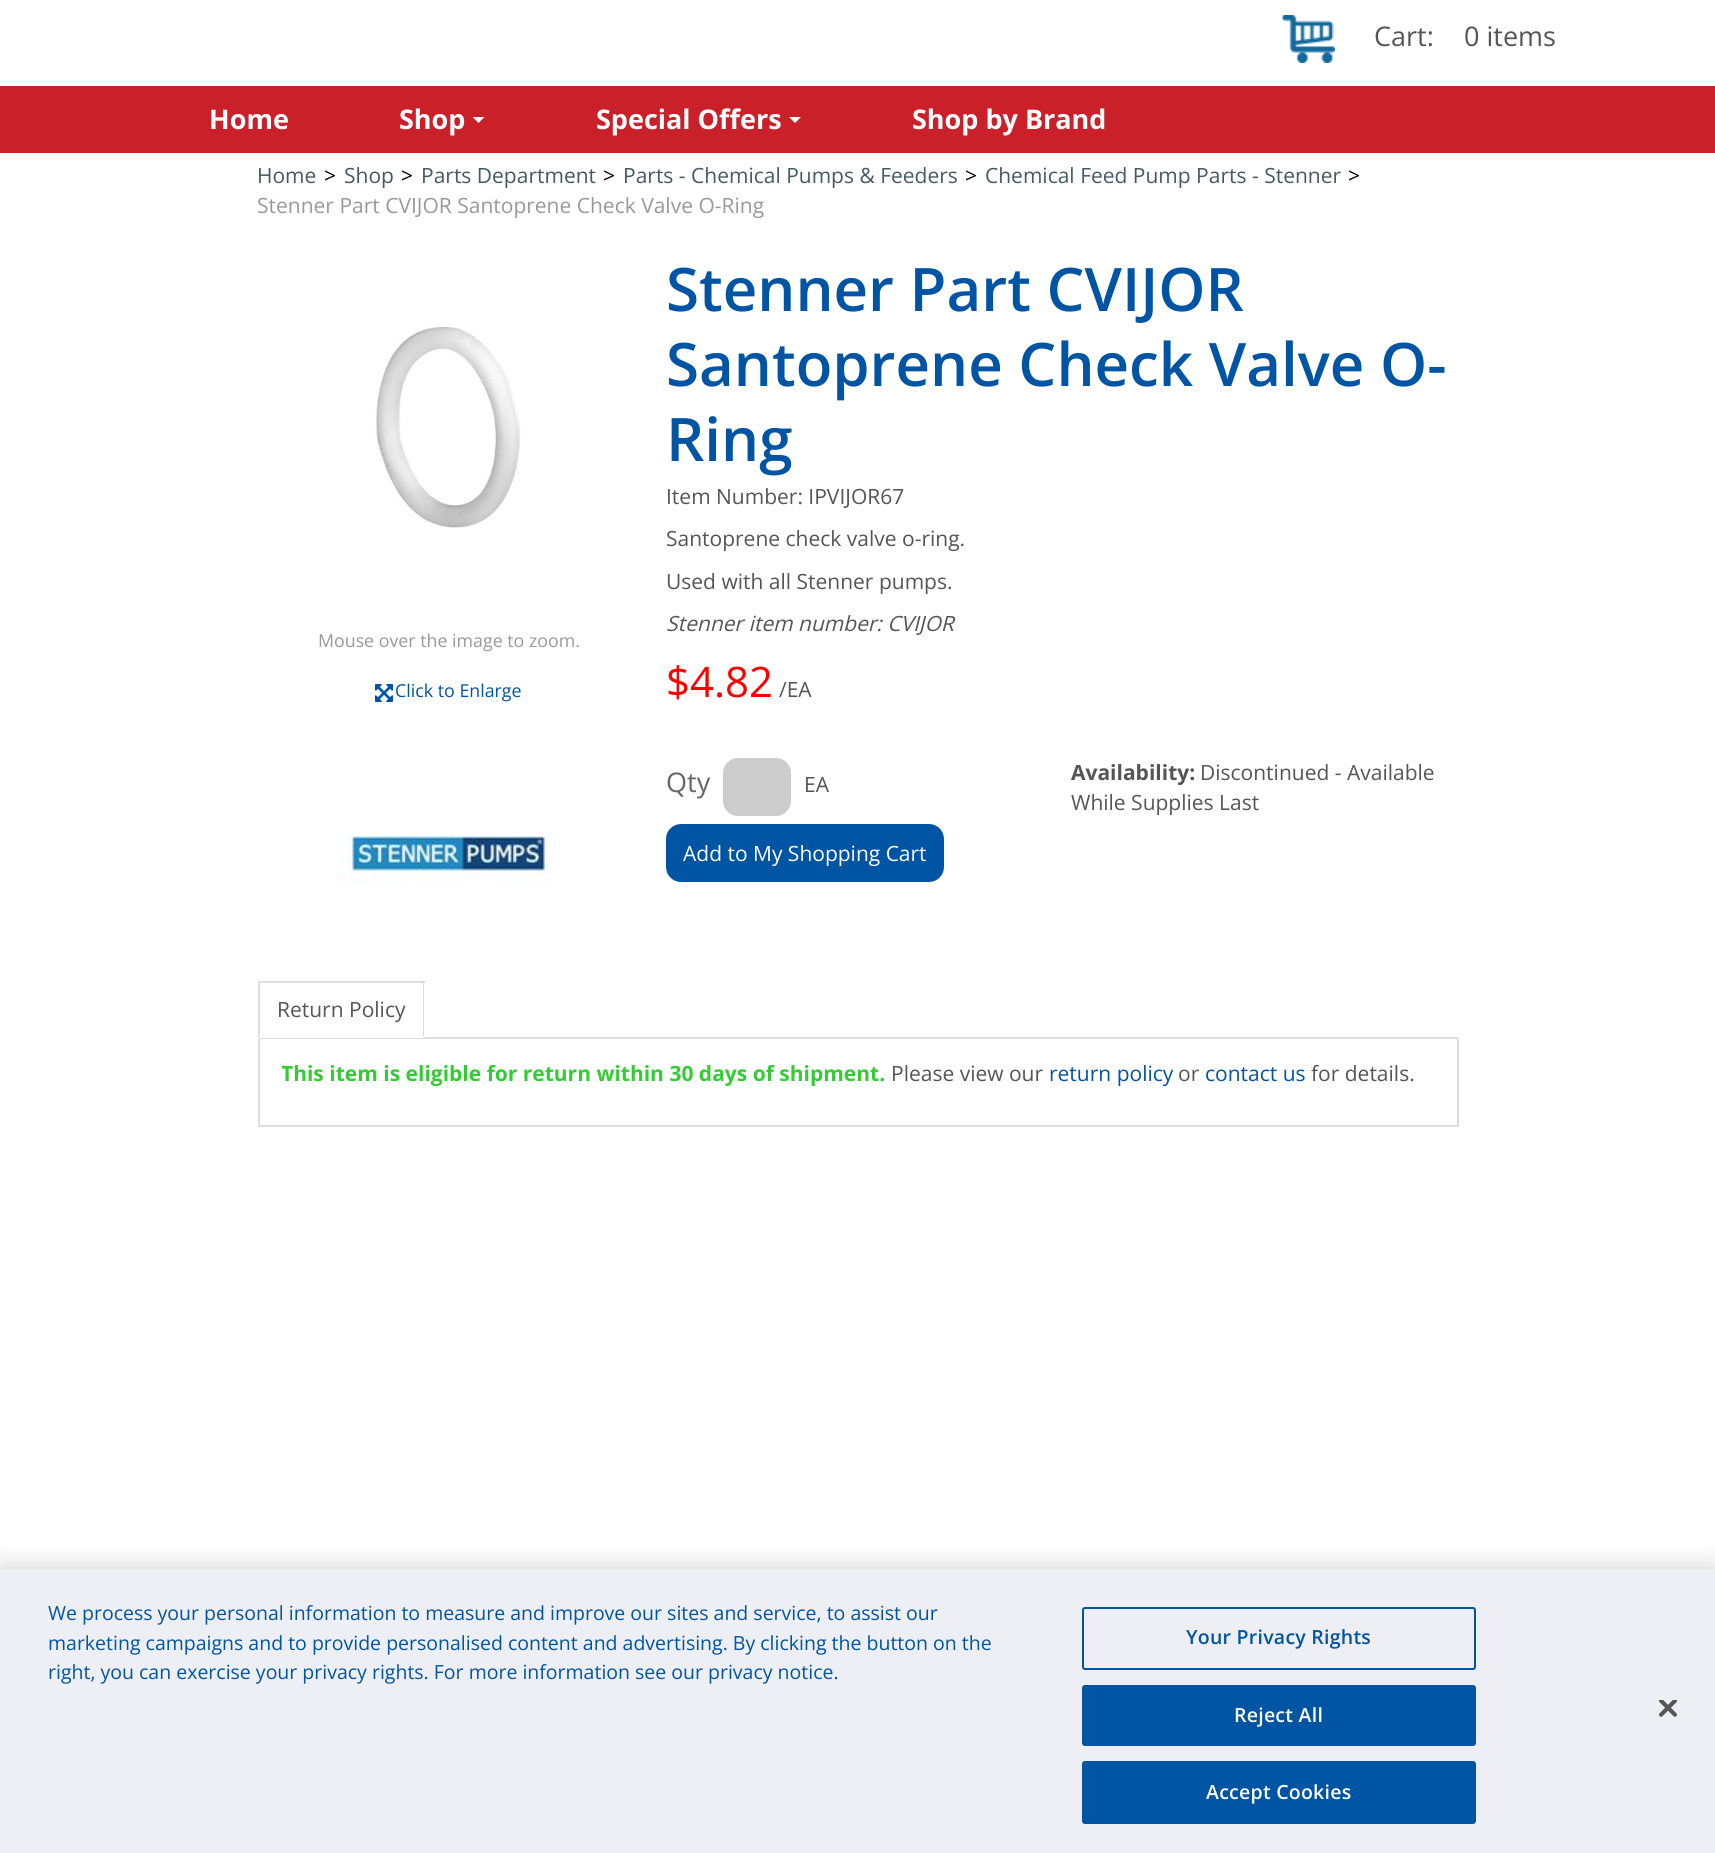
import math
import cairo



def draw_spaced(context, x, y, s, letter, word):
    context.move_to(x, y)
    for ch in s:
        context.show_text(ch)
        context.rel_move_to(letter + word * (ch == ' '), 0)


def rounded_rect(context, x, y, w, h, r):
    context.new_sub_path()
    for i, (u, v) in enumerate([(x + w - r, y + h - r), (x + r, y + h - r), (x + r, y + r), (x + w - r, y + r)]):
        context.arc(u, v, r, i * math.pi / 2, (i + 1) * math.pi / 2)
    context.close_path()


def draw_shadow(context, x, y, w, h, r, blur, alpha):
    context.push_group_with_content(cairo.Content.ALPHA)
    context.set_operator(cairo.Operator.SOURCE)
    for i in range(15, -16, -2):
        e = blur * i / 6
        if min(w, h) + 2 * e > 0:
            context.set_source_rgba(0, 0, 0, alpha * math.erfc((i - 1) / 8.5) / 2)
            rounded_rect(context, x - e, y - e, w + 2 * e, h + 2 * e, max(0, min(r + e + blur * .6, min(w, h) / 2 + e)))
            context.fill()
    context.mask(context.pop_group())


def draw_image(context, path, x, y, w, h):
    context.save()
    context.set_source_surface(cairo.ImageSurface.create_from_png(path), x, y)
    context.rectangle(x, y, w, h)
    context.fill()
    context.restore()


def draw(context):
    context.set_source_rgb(1, 1, 1)
    context.paint()
    draw_image(context, "images/1.png", 1282, 15, 53, 48)
    context.set_source_rgb(201 / 255, 32 / 255, 42 / 255)
    context.rectangle(0, 86, 1715, 67)
    context.fill()
    context.set_source_rgb(1, 1, 1)
    context.new_path()
    context.move_to(472.5, 117)
    context.line_to(484.5, 117)
    context.line_to(478.5, 123)
    context.close_path()
    context.fill()
    context.new_path()
    context.move_to(789, 117)
    context.line_to(801, 117)
    context.line_to(795, 123)
    context.close_path()
    context.fill()
    draw_image(context, "images/2.png", 375, 327, 146, 201)
    draw_image(context, "images/3.png", 375, 684, 18, 18)
    draw_image(context, "images/4.png", 336, 835, 217, 51)
    context.set_source_rgb(204 / 255, 204 / 255, 204 / 255)
    rounded_rect(context, 723, 758, 68, 58, 15)
    context.fill()
    context.set_source_rgb(0, 84 / 255, 164 / 255)
    rounded_rect(context, 667, 825, 276, 56, 14)
    context.fill_preserve()
    context.stroke()
    context.set_source_rgb(221 / 255, 221 / 255, 221 / 255)
    context.rectangle(258, 1037, 1200, 2)
    context.fill()
    context.set_source_rgb(1, 1, 1)
    context.rectangle(258, 1037, 167, 1)
    context.fill()
    context.set_source_rgb(221 / 255, 221 / 255, 221 / 255)
    context.rectangle(258, 981, 167, 2)
    context.fill()
    context.new_path()
    context.move_to(424, 981)
    context.line_to(424, 1038)
    context.line_to(423, 1036)
    context.line_to(423, 982)
    context.close_path()
    context.fill()
    context.new_path()
    context.move_to(258, 1038)
    context.line_to(258, 981)
    context.line_to(260, 982)
    context.line_to(260, 1036)
    context.close_path()
    context.fill()
    context.rectangle(1457, 1038, 2, 89)
    context.fill()
    context.rectangle(258, 1125, 1200, 2)
    context.fill()
    context.rectangle(258, 1038, 2, 89)
    context.fill()
    context.set_source_rgb(0, 0, 0)
    draw_shadow(context, 0, 1569, 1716, 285, 0, 13.5, 0.2)
    context.set_source_rgb(237 / 255, 239 / 255, 245 / 255)
    context.rectangle(0, 1569, 1715, 284)
    context.fill()
    rounded_rect(context, 1083, 1608, 392, 61, 2)
    context.set_source_rgb(0, 84 / 255, 164 / 255)
    context.stroke()
    rounded_rect(context, 1083, 1686, 392, 59, 2)
    context.fill_preserve()
    context.stroke()
    rounded_rect(context, 1083, 1762, 392, 61, 2)
    context.fill_preserve()
    context.stroke()
    draw_image(context, "images/5.png", 1659, 1700, 18, 17)
    context.select_font_face("Open Sans")
    context.set_font_size(27)
    context.set_source_rgb(85 / 255, 85 / 255, 85 / 255)
    context.move_to(1374, 46)
    context.show_text("Cart:")
    context.move_to(1464, 46)
    context.show_text("0 items")
    context.select_font_face("Open Sans", cairo.FontSlant.NORMAL, cairo.FontWeight.BOLD)
    context.set_source_rgb(1, 1, 1)
    context.move_to(209, 129)
    context.show_text("Home")
    context.move_to(399, 129)
    context.show_text("Shop")
    context.move_to(596, 129)
    context.show_text("Special Offers")
    context.move_to(912, 129)
    context.show_text("Shop by Brand")
    context.select_font_face("Open Sans")
    context.set_font_size(21)
    context.set_source_rgb(67 / 255, 90 / 255, 102 / 255)
    context.move_to(257, 183)
    context.show_text("Home")
    context.set_source_rgb(0, 0, 0)
    context.move_to(324, 183)
    context.show_text(">")
    context.set_source_rgb(67 / 255, 90 / 255, 102 / 255)
    context.move_to(344, 183)
    context.show_text("Shop")
    context.set_source_rgb(0, 0, 0)
    context.move_to(401, 183)
    context.show_text(">")
    context.set_source_rgb(67 / 255, 90 / 255, 102 / 255)
    context.move_to(421, 183)
    context.show_text("Parts Department")
    context.set_source_rgb(0, 0, 0)
    context.move_to(603, 183)
    context.show_text(">")
    context.set_source_rgb(67 / 255, 90 / 255, 102 / 255)
    context.move_to(623, 183)
    context.show_text("Parts - Chemical Pumps & Feeders")
    context.set_source_rgb(0, 0, 0)
    context.move_to(965, 183)
    context.show_text(">")
    context.set_source_rgb(67 / 255, 90 / 255, 102 / 255)
    context.move_to(985, 183)
    context.show_text("Chemical Feed Pump Parts - Stenner")
    context.set_source_rgb(0, 0, 0)
    context.move_to(1348, 183)
    context.show_text(">")
    context.set_source_rgb(153 / 255, 153 / 255, 153 / 255)
    context.move_to(257, 213)
    context.show_text("Stenner Part CVIJOR Santoprene Check Valve O-Ring")
    context.set_font_size(17.8)
    context.move_to(318, 647)
    context.show_text("Mouse over the image to zoom.")
    context.set_source_rgb(0, 84 / 255, 164 / 255)
    context.move_to(395, 697)
    context.show_text("Click to Enlarge")
    context.select_font_face("Open Sans SemiBold")
    context.set_font_size(60)
    context.move_to(666, 311)
    context.show_text("Stenner Part CVIJOR")
    context.move_to(666, 386)
    context.show_text("Santoprene Check Valve O-")
    context.move_to(666, 461)
    context.show_text("Ring")
    context.select_font_face("Open Sans")
    context.set_font_size(21)
    context.set_source_rgb(85 / 255, 85 / 255, 85 / 255)
    context.move_to(666, 504)
    context.show_text("Item Number: IPVIJOR67")
    context.move_to(666, 546)
    context.show_text("Santoprene check valve o-ring.")
    context.move_to(666, 589)
    context.show_text("Used with all Stenner pumps.")
    context.select_font_face("Open Sans", cairo.FontSlant.ITALIC)
    context.move_to(666, 631)
    context.show_text("Stenner item number: CVIJOR")
    context.select_font_face("Open Sans")
    context.set_font_size(42)
    context.set_source_rgb(1, 0, 0)
    context.move_to(666, 697)
    context.show_text("$4.82")
    context.set_font_size(21)
    context.set_source_rgb(85 / 255, 85 / 255, 85 / 255)
    context.move_to(779, 697)
    context.show_text("/EA")
    context.set_font_size(27)
    context.set_source_rgb(102 / 255, 102 / 255, 102 / 255)
    context.move_to(666, 792)
    context.show_text("Qty")
    context.set_font_size(21)
    context.set_source_rgb(85 / 255, 85 / 255, 85 / 255)
    context.move_to(804, 792)
    context.show_text("EA")
    context.set_source_rgb(1, 1, 1)
    context.move_to(683, 861)
    context.show_text("Add to My Shopping Cart")
    context.select_font_face("Open Sans", cairo.FontSlant.NORMAL, cairo.FontWeight.BOLD)
    context.set_source_rgb(85 / 255, 85 / 255, 85 / 255)
    context.move_to(1071, 780)
    context.show_text("Availability:")
    context.select_font_face("Open Sans")
    context.move_to(1200, 780)
    context.show_text("Discontinued - Available")
    context.move_to(1071, 810)
    context.show_text("While Supplies Last")
    context.move_to(277, 1017)
    context.show_text("Return Policy")
    context.save()
    context.rectangle(282, 1061, 1152, 42)
    context.clip()
    context.select_font_face("Open Sans", cairo.FontSlant.NORMAL, cairo.FontWeight.BOLD)
    context.set_source_rgb(50 / 255, 205 / 255, 50 / 255)
    context.move_to(281, 1081)
    context.show_text("This item is eligible for return within 30 days of shipment.")
    context.restore()
    context.move_to(891, 1081)
    context.show_text("Please view our")
    context.set_source_rgb(0, 84 / 255, 164 / 255)
    context.move_to(1049, 1081)
    context.show_text("return policy")
    context.set_source_rgb(85 / 255, 85 / 255, 85 / 255)
    context.move_to(1178, 1081)
    context.show_text("or")
    context.set_source_rgb(0, 84 / 255, 164 / 255)
    context.move_to(1205, 1081)
    context.show_text("contact us")
    context.set_source_rgb(85 / 255, 85 / 255, 85 / 255)
    context.move_to(1311, 1081)
    context.show_text("for details.")
    context.set_font_size(19.5)
    context.set_source_rgb(0, 84 / 255, 164 / 255)
    context.move_to(48, 1620)
    context.show_text("We process your personal information to measure and improve our sites and service, to assist our")
    context.move_to(48, 1650)
    context.show_text("marketing campaigns and to provide personalised content and advertising. By clicking the button on the")
    context.move_to(48, 1679)
    context.show_text("right, you can exercise your privacy rights. For more information see our privacy notice.")
    context.select_font_face("Open Sans SemiBold")
    draw_spaced(context, 1186, 1644, "Your Privacy Rights", 0.25, 0)
    context.set_source_rgb(1, 1, 1)
    draw_spaced(context, 1234, 1722, "Reject All", 0.25, 0)
    draw_spaced(context, 1206, 1799, "Accept Cookies", 0.25, 0)


surface = cairo.ImageSurface(cairo.Format.RGB24, 1715, 1853)
context = cairo.Context(surface)
options = cairo.FontOptions()
options.set_hint_metrics(cairo.HintMetrics.OFF)
options.set_hint_style(cairo.HintStyle.NONE)
context.set_font_options(options)
context.set_miter_limit(4)
draw(context)
surface.write_to_png("out.png")
